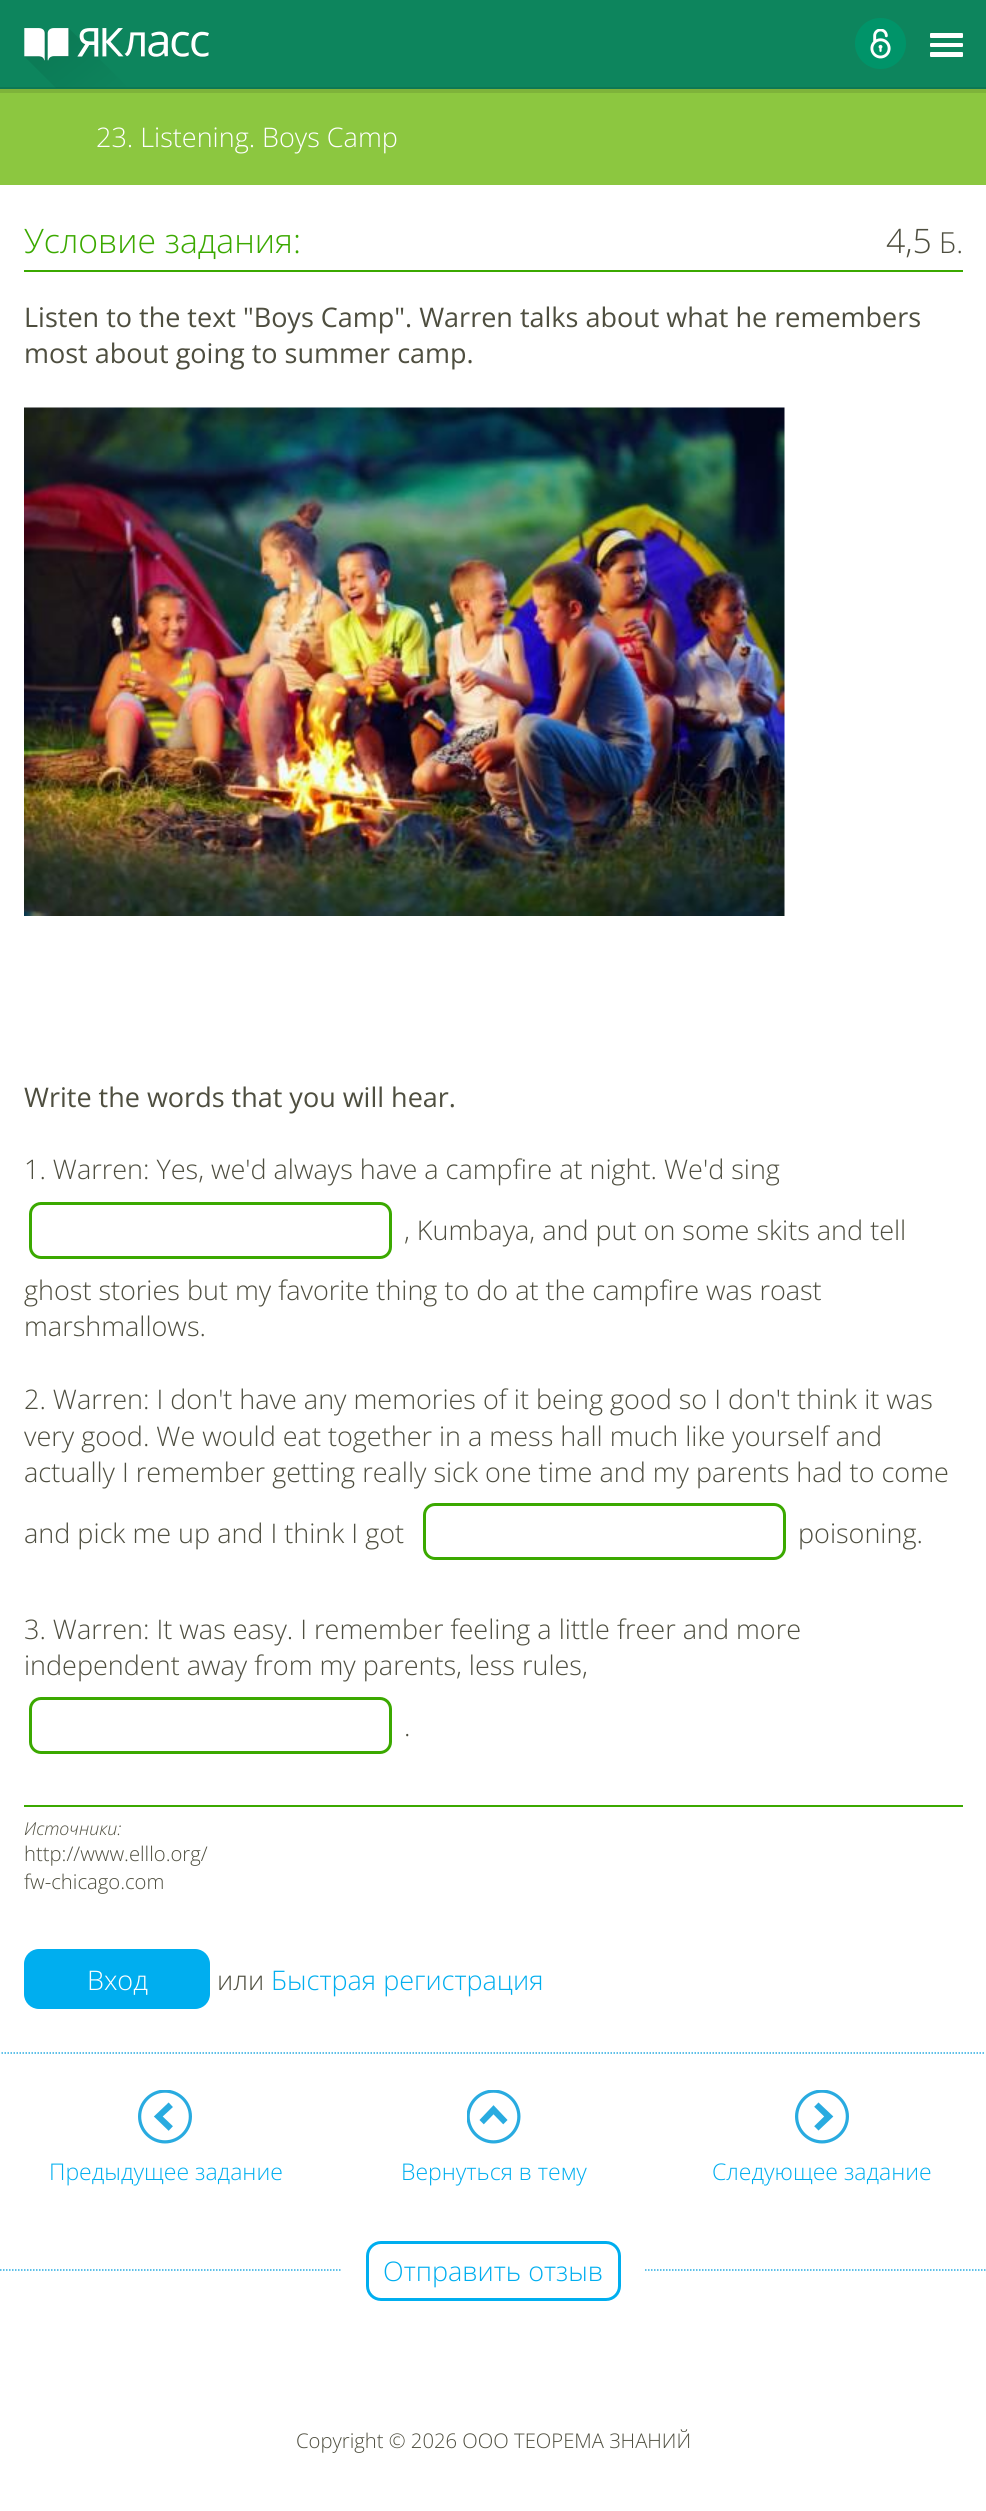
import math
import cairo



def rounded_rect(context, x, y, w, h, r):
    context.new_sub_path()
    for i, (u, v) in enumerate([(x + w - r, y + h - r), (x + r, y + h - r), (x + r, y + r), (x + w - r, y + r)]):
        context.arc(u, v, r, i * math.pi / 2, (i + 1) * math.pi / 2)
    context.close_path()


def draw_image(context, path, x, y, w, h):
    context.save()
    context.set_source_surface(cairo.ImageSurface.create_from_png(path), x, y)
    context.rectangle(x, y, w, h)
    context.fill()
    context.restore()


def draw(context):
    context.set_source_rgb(1, 1, 1)
    context.paint()
    context.set_source_rgb(13 / 255, 133 / 255, 93 / 255)
    context.rectangle(0, 0, 986, 87)
    context.fill()
    context.set_source_rgb(12 / 255, 120 / 255, 84 / 255)
    context.rectangle(0, 87, 986, 2)
    context.fill()
    draw_image(context, "images/1.png", 24, 28, 185, 60)
    context.set_source_rgb(0, 148 / 255, 105 / 255)
    context.arc(880.5, 43.5, 25.5, 0, 2 * math.pi)
    context.fill()
    draw_image(context, "images/2.png", 870, 29, 21, 30)
    context.set_source_rgb(1, 1, 1)
    rounded_rect(context, 930, 33, 33, 5, 1)
    context.fill()
    rounded_rect(context, 930, 43, 33, 4, 1)
    context.fill()
    rounded_rect(context, 930, 52, 33, 5, 1)
    context.fill()
    context.set_source_rgb(140 / 255, 199 / 255, 64 / 255)
    context.rectangle(0, 93, 986, 92)
    context.fill()
    context.set_source_rgb(126 / 255, 179 / 255, 58 / 255)
    context.rectangle(0, 89, 986, 4)
    context.fill()
    context.set_source_rgb(59 / 255, 169 / 255, 0)
    context.rectangle(24, 270, 939, 2)
    context.fill()
    draw_image(context, "images/3.png", 24, 407, 761, 509)
    rounded_rect(context, 30.5, 1203.5, 360, 54, 10.5)
    context.set_line_width(3)
    context.stroke()
    rounded_rect(context, 424.5, 1504.5, 360, 54, 10.5)
    context.stroke()
    rounded_rect(context, 30.5, 1698.5, 360, 54, 10.5)
    context.stroke()
    context.rectangle(24, 1805, 939, 2)
    context.fill()
    context.set_source_rgb(0, 174 / 255, 239 / 255)
    rounded_rect(context, 24, 1949, 186, 60, 15)
    context.fill()
    context.new_path()
    context.move_to(1.5, 2053)
    context.line_to(985.5, 2053)
    context.set_source_rgb(41 / 255, 171 / 255, 224 / 255)
    context.set_line_width(1.5)
    context.set_dash([1.5, 1.5])
    context.stroke()
    draw_image(context, "images/4.png", 138, 2090, 54, 54)
    draw_image(context, "images/5.png", 467, 2090, 54, 54)
    draw_image(context, "images/6.png", 795, 2090, 54, 54)
    context.new_path()
    context.move_to(0, 2270)
    context.line_to(342, 2270)
    context.stroke()
    rounded_rect(context, 367.5, 2242.5, 252, 57, 13.5)
    context.set_source_rgb(0, 174 / 255, 239 / 255)
    context.set_line_width(3)
    context.set_dash([])
    context.stroke()
    context.new_path()
    context.move_to(645, 2270)
    context.line_to(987, 2270)
    context.set_source_rgb(41 / 255, 171 / 255, 224 / 255)
    context.set_line_width(1.5)
    context.set_dash([1.5, 1.5])
    context.stroke()
    context.select_font_face("Open Sans Light")
    context.set_font_size(27)
    context.set_source_rgb(1, 1, 1)
    context.move_to(96, 147)
    context.show_text("23. Listening. Boys Camp")
    context.set_font_size(33.75)
    context.set_source_rgb(59 / 255, 169 / 255, 0)
    context.move_to(24, 253)
    context.show_text("Условие задания:")
    context.set_source_rgb(78 / 255, 78 / 255, 63 / 255)
    context.move_to(886, 253)
    context.show_text("4,5")
    context.set_font_size(29)
    context.move_to(939, 253)
    context.show_text("Б.")
    context.select_font_face("Open Sans")
    context.set_font_size(27)
    context.move_to(24, 327)
    context.show_text("Listen to the text \"Boys Camp\". Warren talks about what he remembers")
    context.move_to(24, 363)
    context.show_text("most about going to summer camp.")
    context.move_to(24, 1107)
    context.show_text("Write the words that you will hear.")
    context.select_font_face("Open Sans Light")
    context.move_to(24, 1179)
    context.show_text("1. Warren: Yes, we'd always have a campfire at night. We'd sing")
    context.move_to(404, 1240)
    context.show_text(", Kumbaya, and put on some skits and tell")
    context.move_to(24, 1300)
    context.show_text("ghost stories but my favorite thing to do at the campfire was roast")
    context.move_to(24, 1336)
    context.show_text("marshmallows.")
    context.move_to(24, 1409)
    context.show_text("2. Warren: I don't have any memories of it being good so I don't think it was")
    context.move_to(24, 1446)
    context.show_text("very good. We would eat together in a mess hall much like yourself and")
    context.move_to(24, 1482)
    context.show_text("actually I remember getting really sick one time and my parents had to come")
    context.move_to(24, 1543)
    context.show_text("and pick me up and I think I got")
    context.move_to(798, 1543)
    context.show_text("poisoning.")
    context.move_to(24, 1639)
    context.show_text("3. Warren: It was easy. I remember feeling a little freer and more")
    context.move_to(24, 1675)
    context.show_text("independent away from my parents, less rules,")
    context.move_to(404, 1736)
    context.show_text(".")
    context.select_font_face("Open Sans Light", cairo.FontSlant.ITALIC)
    context.set_font_size(17.75)
    context.move_to(24, 1835)
    context.show_text("Источники:")
    context.select_font_face("Open Sans Light")
    context.set_font_size(20.25)
    context.move_to(24, 1861)
    context.show_text("http://www.elllo.org/")
    context.move_to(24, 1889)
    context.show_text("fw-chicago.com")
    context.set_font_size(27)
    context.set_source_rgb(1, 1, 1)
    context.move_to(87, 1990)
    context.show_text("Вход")
    context.set_source_rgb(78 / 255, 78 / 255, 63 / 255)
    context.move_to(217, 1990)
    context.show_text("или")
    context.set_source_rgb(0, 174 / 255, 239 / 255)
    context.move_to(271, 1990)
    context.show_text("Быстрая регистрация")
    context.set_font_size(23)
    context.move_to(49, 2180)
    context.show_text("Предыдущее задание")
    context.move_to(401, 2180)
    context.show_text("Вернуться в тему")
    context.move_to(712, 2180)
    context.show_text("Следующее задание")
    context.set_font_size(27)
    context.move_to(383, 2281)
    context.show_text("Отправить отзыв")
    context.set_font_size(20.25)
    context.set_source_rgb(78 / 255, 78 / 255, 63 / 255)
    context.move_to(296, 2448)
    context.show_text("Copyright © 2026 ООО ТЕОРЕМА ЗНАНИЙ")


surface = cairo.ImageSurface(cairo.Format.RGB24, 986, 2511)
context = cairo.Context(surface)
options = cairo.FontOptions()
options.set_hint_metrics(cairo.HintMetrics.OFF)
options.set_hint_style(cairo.HintStyle.NONE)
context.set_font_options(options)
context.set_miter_limit(4)
draw(context)
surface.write_to_png("out.png")
